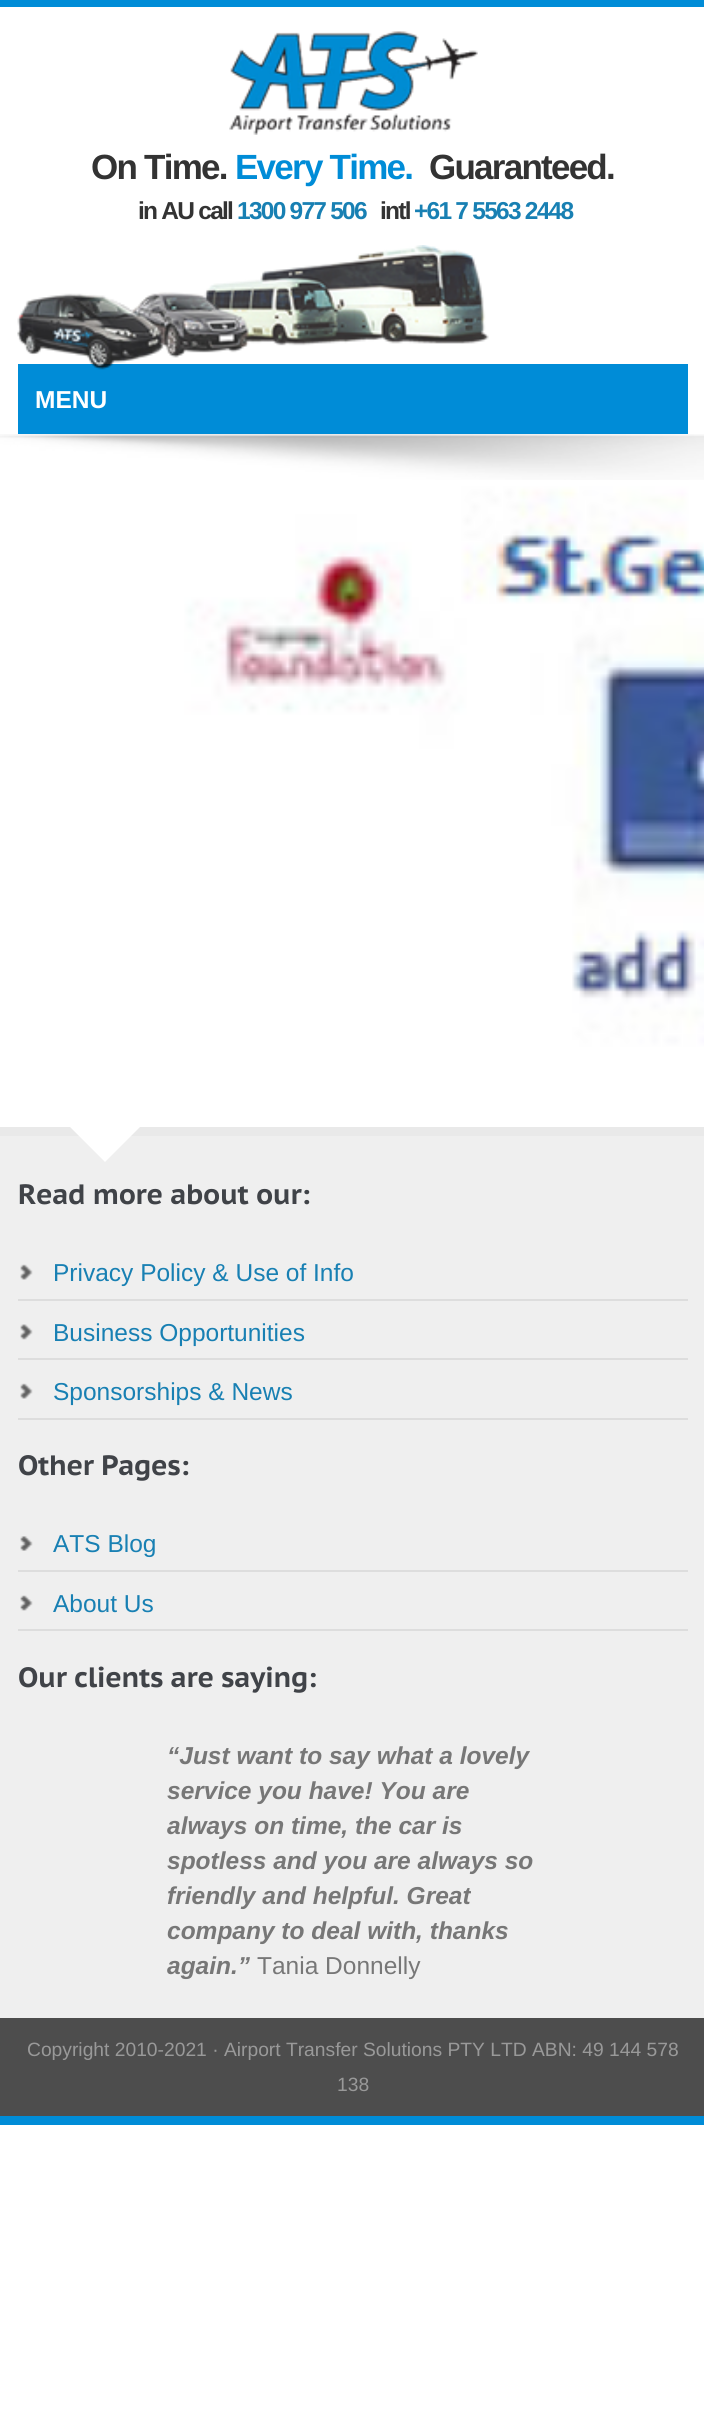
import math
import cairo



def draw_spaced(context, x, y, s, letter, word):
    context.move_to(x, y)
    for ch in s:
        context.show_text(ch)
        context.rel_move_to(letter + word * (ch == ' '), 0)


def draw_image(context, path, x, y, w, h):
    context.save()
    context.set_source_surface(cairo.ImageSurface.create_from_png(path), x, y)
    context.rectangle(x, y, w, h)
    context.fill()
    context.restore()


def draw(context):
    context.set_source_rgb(1, 1, 1)
    context.paint()
    context.set_source_rgb(0, 140 / 255, 215 / 255)
    context.rectangle(0, 2116, 704, 9)
    context.fill()
    context.rectangle(0, 0, 704, 7)
    context.fill()
    draw_image(context, "images/1.png", 229, 31, 249, 104)
    context.rectangle(18, 364, 670, 70)
    context.fill()
    draw_image(context, "images/2.png", 17, 245, 472, 125)
    draw_image(context, "images/3.png", 0, 434, 704, 693)
    draw_image(context, "images/4.png", 0, 434, 704, 46)
    context.set_source_rgb(239 / 255, 239 / 255, 239 / 255)
    context.rectangle(0, 1136, 704, 882)
    context.fill()
    context.set_source_rgb(233 / 255, 233 / 255, 233 / 255)
    context.rectangle(0, 1127, 704, 9)
    context.fill()
    context.set_source_rgb(1, 1, 1)
    context.new_path()
    context.move_to(70, 1127)
    context.line_to(140, 1127)
    context.line_to(105, 1162)
    context.close_path()
    context.fill()
    draw_image(context, "images/5.png", 20, 1264, 13, 16)
    context.set_source_rgb(221 / 255, 221 / 255, 221 / 255)
    context.rectangle(18, 1299, 670, 2)
    context.fill()
    draw_image(context, "images/6.png", 20, 1324, 13, 16)
    context.rectangle(18, 1358, 670, 2)
    context.fill()
    draw_image(context, "images/5.png", 20, 1383, 13, 16)
    context.rectangle(18, 1418, 670, 2)
    context.fill()
    draw_image(context, "images/7.png", 20, 1536, 13, 15)
    context.rectangle(18, 1570, 670, 2)
    context.fill()
    draw_image(context, "images/8.png", 20, 1595, 13, 16)
    context.rectangle(18, 1629, 670, 2)
    context.fill()
    context.set_source_rgb(77 / 255, 77 / 255, 77 / 255)
    context.rectangle(0, 2018, 704, 98)
    context.fill()
    context.select_font_face("Liberation Sans", cairo.FontSlant.NORMAL, cairo.FontWeight.BOLD)
    context.set_font_size(35)
    context.set_source_rgb(51 / 255, 51 / 255, 51 / 255)
    draw_spaced(context, 91, 179, "On Time.", -1.75, 0)
    context.set_source_rgb(0, 140 / 255, 215 / 255)
    draw_spaced(context, 235, 179, "Every Time.", -1.75, 0)
    context.set_source_rgb(51 / 255, 51 / 255, 51 / 255)
    draw_spaced(context, 429, 179, "Guaranteed.", -1.75, 0)
    context.set_font_size(24.5)
    draw_spaced(context, 138, 219, "in AU call", -1.75, 0)
    context.set_source_rgb(24 / 255, 128 / 255, 179 / 255)
    draw_spaced(context, 237, 219, "1300 977 506", -1.75, 0)
    context.set_source_rgb(51 / 255, 51 / 255, 51 / 255)
    draw_spaced(context, 380, 219, "intl", -1.75, 0)
    context.set_source_rgb(24 / 255, 128 / 255, 179 / 255)
    draw_spaced(context, 414, 219, "+61 7 5563 2448", -1.75, 0)
    context.set_source_rgb(1, 1, 1)
    context.move_to(35, 408)
    context.show_text("MENU")
    context.select_font_face("PT Sans Caption", cairo.FontSlant.NORMAL, cairo.FontWeight.BOLD)
    context.set_font_size(28)
    context.set_source_rgb(64 / 255, 67 / 255, 72 / 255)
    draw_spaced(context, 18, 1204, "Read more about our:", -0.35, 0)
    context.select_font_face("Liberation Sans")
    context.set_font_size(24.5)
    context.set_source_rgb(24 / 255, 128 / 255, 179 / 255)
    context.move_to(53, 1281)
    context.show_text("Privacy Policy & Use of Info")
    context.move_to(53, 1341)
    context.show_text("Business Opportunities")
    context.move_to(53, 1400)
    context.show_text("Sponsorships & News")
    context.select_font_face("PT Sans Caption", cairo.FontSlant.NORMAL, cairo.FontWeight.BOLD)
    context.set_font_size(28)
    context.set_source_rgb(64 / 255, 67 / 255, 72 / 255)
    draw_spaced(context, 18, 1475, "Other Pages:", -0.35, 0)
    context.select_font_face("Liberation Sans")
    context.set_font_size(24.5)
    context.set_source_rgb(24 / 255, 128 / 255, 179 / 255)
    context.move_to(53, 1552)
    context.show_text("ATS Blog")
    context.move_to(53, 1612)
    context.show_text("About Us")
    context.select_font_face("PT Sans Caption", cairo.FontSlant.NORMAL, cairo.FontWeight.BOLD)
    context.set_font_size(28)
    context.set_source_rgb(64 / 255, 67 / 255, 72 / 255)
    draw_spaced(context, 18, 1687, "Our clients are saying:", -0.35, 0)
    context.select_font_face("Liberation Sans", cairo.FontSlant.ITALIC, cairo.FontWeight.BOLD)
    context.set_font_size(24.5)
    context.set_source_rgb(119 / 255, 119 / 255, 119 / 255)
    context.move_to(167, 1764)
    context.show_text("“Just want to say what a lovely")
    context.move_to(167, 1799)
    context.show_text("service you have! You are")
    context.move_to(167, 1834)
    context.show_text("always on time, the car is")
    context.move_to(167, 1869)
    context.show_text("spotless and you are always so")
    context.move_to(167, 1904)
    context.show_text("friendly and helpful. Great")
    context.move_to(167, 1939)
    context.show_text("company to deal with, thanks")
    context.move_to(167, 1974)
    context.show_text("again.”")
    context.select_font_face("Liberation Sans")
    context.move_to(257, 1974)
    context.show_text("Tania Donnelly")
    context.set_font_size(19.25)
    context.set_source_rgb(153 / 255, 153 / 255, 153 / 255)
    context.move_to(27, 2056)
    context.show_text("Copyright 2010-2021 · Airport Transfer Solutions PTY LTD ABN: 49 144 578")
    context.move_to(337, 2091)
    context.show_text("138")


surface = cairo.ImageSurface(cairo.Format.RGB24, 704, 2429)
context = cairo.Context(surface)
options = cairo.FontOptions()
options.set_hint_metrics(cairo.HintMetrics.OFF)
options.set_hint_style(cairo.HintStyle.NONE)
context.set_font_options(options)
context.set_miter_limit(4)
draw(context)
surface.write_to_png("out.png")
